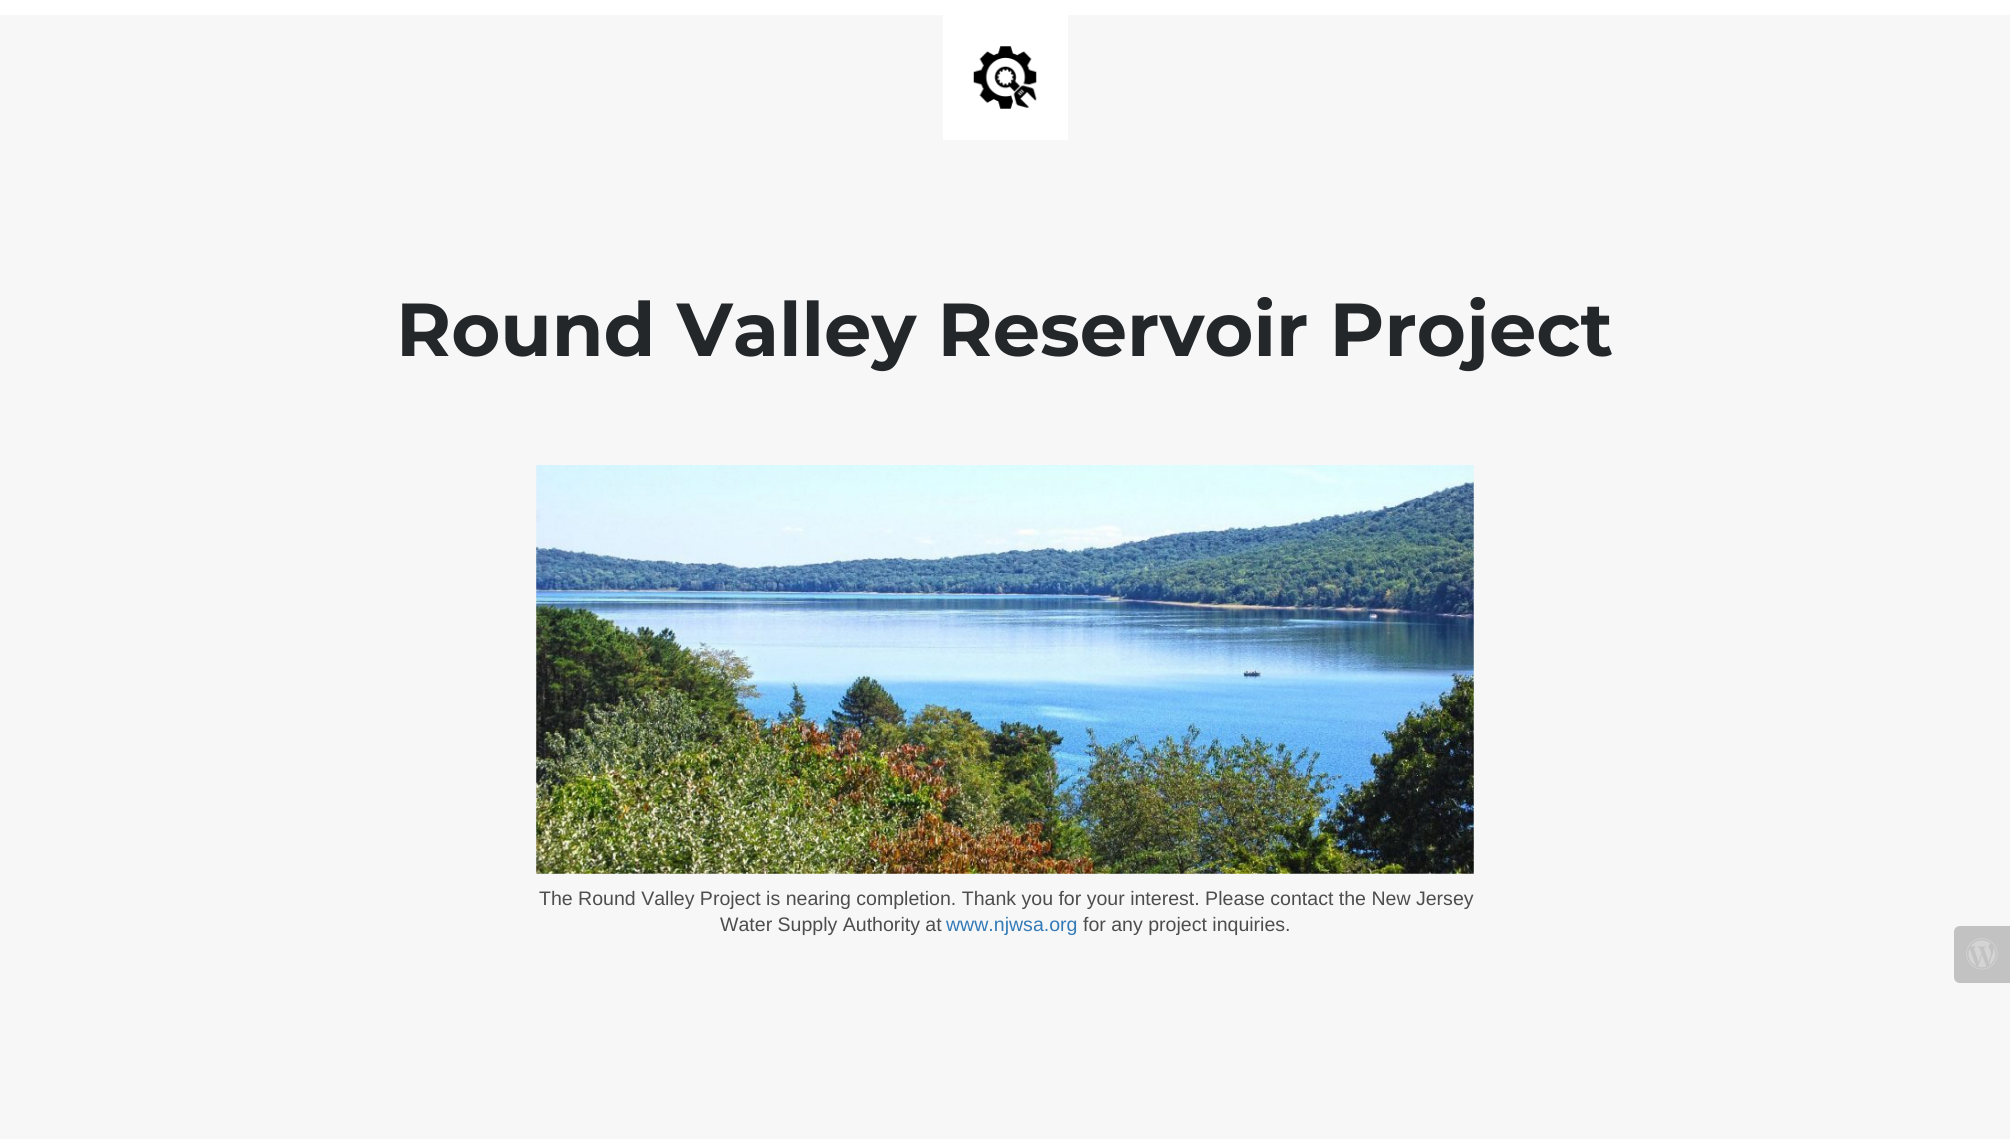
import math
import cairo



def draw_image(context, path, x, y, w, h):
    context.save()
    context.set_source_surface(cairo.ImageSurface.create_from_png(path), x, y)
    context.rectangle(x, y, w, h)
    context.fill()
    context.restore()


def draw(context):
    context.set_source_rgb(247 / 255, 247 / 255, 247 / 255)
    context.paint()
    context.set_source_rgb(1, 1, 1)
    context.rectangle(0, 0, 2010, 15)
    context.fill()
    context.rectangle(943, 15, 125, 125)
    context.fill()
    draw_image(context, "images/1.png", 973, 46, 64, 63)
    draw_image(context, "images/2.png", 536, 465, 938, 409)
    context.set_source_rgb(194 / 255, 194 / 255, 194 / 255)
    context.new_path()
    context.move_to(1960, 926)
    context.line_to(2010, 926)
    context.line_to(2010, 983)
    context.line_to(1960, 983)
    context.curve_to(1956.5, 983, 1954, 980.5, 1954, 977)
    context.line_to(1954, 932)
    context.curve_to(1954, 928.5, 1956.5, 926, 1960, 926)
    context.close_path()
    context.fill()
    draw_image(context, "images/3.png", 1966, 938, 32, 32)
    context.select_font_face("Montserrat Thin")
    context.set_font_size(75)
    context.set_source_rgb(35 / 255, 39 / 255, 42 / 255)
    context.move_to(396, 356)
    context.show_text("Round Valley Reservoir Project")
    context.select_font_face("Liberation Sans")
    context.set_font_size(19.55)
    context.set_source_rgb(77 / 255, 77 / 255, 77 / 255)
    context.move_to(539, 905)
    context.show_text("The Round Valley Project is nearing completion. Thank you for your interest. Please contact the New Jersey")
    context.move_to(720, 931)
    context.show_text("Water Supply Authority at")
    context.set_source_rgb(51 / 255, 122 / 255, 183 / 255)
    context.move_to(946, 931)
    context.show_text("www.njwsa.org")
    context.set_source_rgb(77 / 255, 77 / 255, 77 / 255)
    context.move_to(1083, 931)
    context.show_text("for any project inquiries.")


surface = cairo.ImageSurface(cairo.Format.RGB24, 2010, 1139)
context = cairo.Context(surface)
options = cairo.FontOptions()
options.set_hint_metrics(cairo.HintMetrics.OFF)
options.set_hint_style(cairo.HintStyle.NONE)
context.set_font_options(options)
context.set_miter_limit(4)
draw(context)
surface.write_to_png("out.png")
